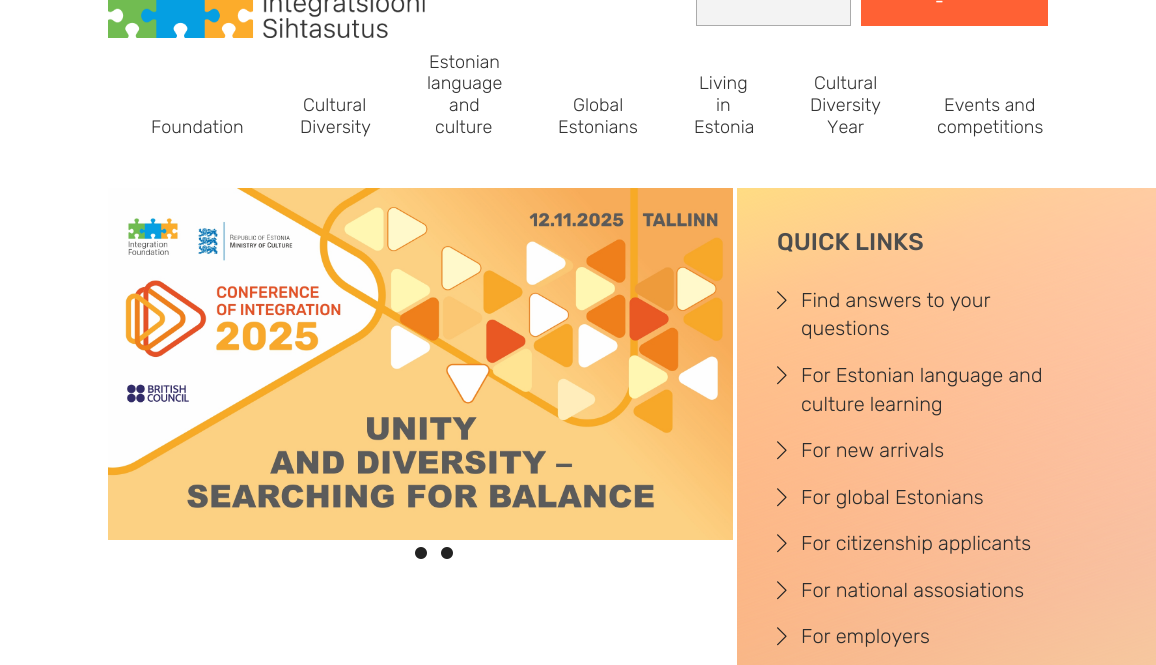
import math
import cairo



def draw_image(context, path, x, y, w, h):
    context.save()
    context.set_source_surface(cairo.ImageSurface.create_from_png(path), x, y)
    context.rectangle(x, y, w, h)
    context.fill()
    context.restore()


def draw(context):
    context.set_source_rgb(1, 1, 1)
    context.paint()
    draw_image(context, "images/1.png", 108, 0, 317, 38)
    context.set_source_rgb(243 / 255, 243 / 255, 243 / 255)
    context.rectangle(696.5, -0.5, 154, 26)
    context.fill_preserve()
    context.set_source_rgb(171 / 255, 171 / 255, 171 / 255)
    context.set_line_width(1)
    context.stroke()
    context.set_source_rgb(1, 97 / 255, 52 / 255)
    context.rectangle(861, 0, 187, 26)
    context.fill()
    draw_image(context, "images/2.png", 108, 188, 625, 352)
    context.set_source_rgb(34 / 255, 34 / 255, 34 / 255)
    context.arc(421, 553, 6, 0, 2 * math.pi)
    context.fill()
    context.arc(447, 553, 6, 0, 2 * math.pi)
    context.fill()
    gradient = cairo.LinearGradient(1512, 188, 1057, 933)
    gradient.add_color_stop_rgba(0, 1, 194 / 255, 227 / 255, 1)
    gradient.add_color_stop_rgba(1, 1, 142 / 255, 102 / 255, 1)
    context.set_source(gradient)
    context.rectangle(737, 188, 419, 477)
    context.fill()
    gradient = cairo.LinearGradient(1127, 228, 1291, 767)
    gradient.add_color_stop_rgba(0, 240 / 255, 227 / 255, 170 / 255, 0)
    gradient.add_color_stop_rgba(0.84, 240 / 255, 227 / 255, 170 / 255, 0.66)
    gradient.add_color_stop_rgba(1, 240 / 255, 227 / 255, 170 / 255, 1)
    context.set_source(gradient)
    context.rectangle(737, 257, 419, 408)
    context.fill()
    gradient = cairo.LinearGradient(1063, 597, 891, 111)
    gradient.add_color_stop_rgba(0, 1, 224 / 255, 128 / 255, 0)
    gradient.add_color_stop_rgba(0.74, 1, 224 / 255, 128 / 255, 0.56)
    gradient.add_color_stop_rgba(1, 1, 224 / 255, 128 / 255, 1)
    context.set_source(gradient)
    context.rectangle(737, 188, 419, 477)
    context.fill()
    draw_image(context, "images/3.png", 777, 291, 10, 19)
    draw_image(context, "images/4.png", 777, 366, 10, 19)
    draw_image(context, "images/5.png", 777, 441, 10, 19)
    draw_image(context, "images/6.png", 777, 488, 10, 19)
    draw_image(context, "images/7.png", 777, 534, 10, 19)
    draw_image(context, "images/8.png", 777, 581, 10, 19)
    draw_image(context, "images/9.png", 777, 627, 10, 19)
    context.select_font_face("Rubik")
    context.set_font_size(18)
    context.set_source_rgb(1, 1, 1)
    context.move_to(935, 7)
    context.show_text("-")
    context.select_font_face("Rubik Light")
    context.set_source_rgb(51 / 255, 51 / 255, 51 / 255)
    context.move_to(151, 133)
    context.show_text("Foundation")
    context.move_to(303, 111)
    context.show_text("Cultural")
    context.move_to(300, 133)
    context.show_text("Diversity")
    context.move_to(429, 68)
    context.show_text("Estonian")
    context.move_to(427, 89)
    context.show_text("language")
    context.move_to(449, 111)
    context.show_text("and")
    context.move_to(435, 133)
    context.show_text("culture")
    context.move_to(573, 111)
    context.show_text("Global")
    context.move_to(558, 133)
    context.show_text("Estonians")
    context.move_to(699, 89)
    context.show_text("Living")
    context.move_to(716, 111)
    context.show_text("in")
    context.move_to(694, 133)
    context.show_text("Estonia")
    context.move_to(814, 89)
    context.show_text("Cultural")
    context.move_to(810, 111)
    context.show_text("Diversity")
    context.move_to(827, 133)
    context.show_text("Year")
    context.move_to(944, 111)
    context.show_text("Events and")
    context.move_to(937, 133)
    context.show_text("competitions")
    context.select_font_face("Rubik Medium")
    context.set_font_size(24)
    context.set_source_rgb(77 / 255, 77 / 255, 77 / 255)
    context.move_to(777, 250)
    context.show_text("QUICK LINKS")
    context.select_font_face("Rubik Light")
    context.set_font_size(20)
    context.set_source_rgb(44 / 255, 44 / 255, 44 / 255)
    context.move_to(801, 307)
    context.show_text("Find answers to your")
    context.move_to(801, 335)
    context.show_text("questions")
    context.move_to(801, 382)
    context.show_text("For Estonian language and")
    context.move_to(801, 411)
    context.show_text("culture learning")
    context.move_to(801, 457)
    context.show_text("For new arrivals")
    context.move_to(801, 504)
    context.show_text("For global Estonians")
    context.move_to(801, 550)
    context.show_text("For citizenship applicants")
    context.move_to(801, 597)
    context.show_text("For national assosiations")
    context.move_to(801, 643)
    context.show_text("For employers")


surface = cairo.ImageSurface(cairo.Format.RGB24, 1156, 665)
context = cairo.Context(surface)
options = cairo.FontOptions()
options.set_hint_metrics(cairo.HintMetrics.OFF)
options.set_hint_style(cairo.HintStyle.NONE)
context.set_font_options(options)
context.set_miter_limit(4)
draw(context)
surface.write_to_png("out.png")
